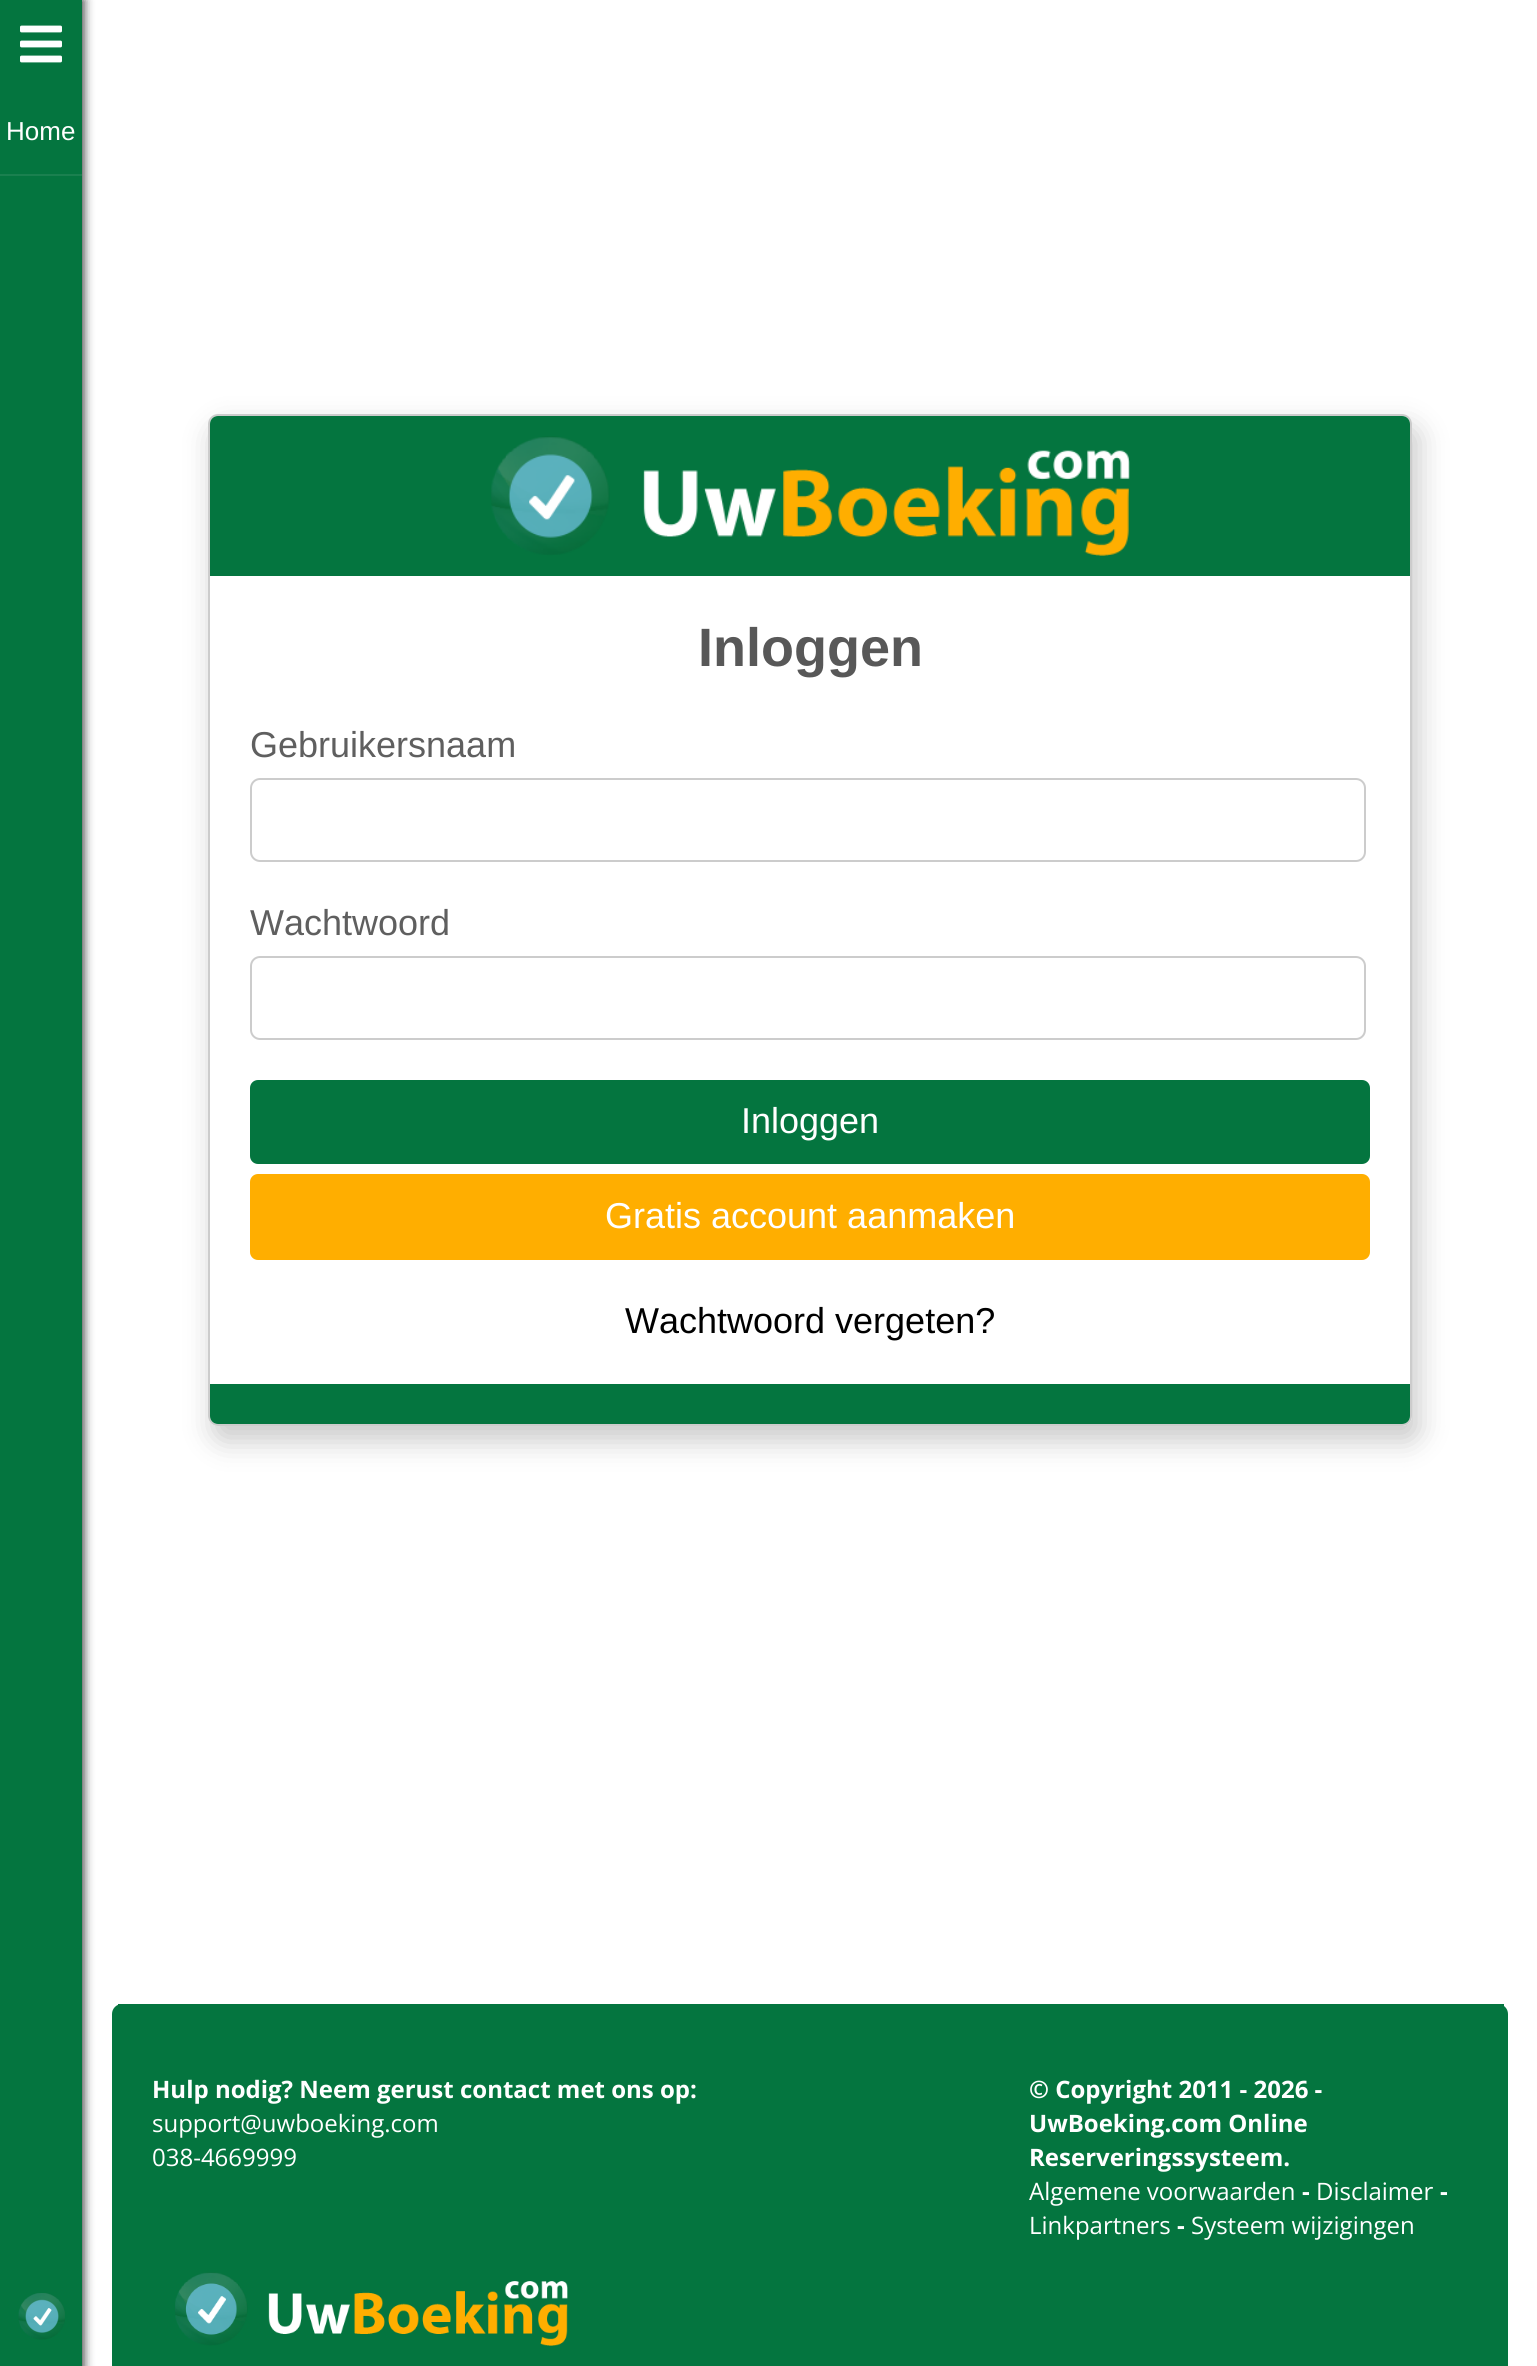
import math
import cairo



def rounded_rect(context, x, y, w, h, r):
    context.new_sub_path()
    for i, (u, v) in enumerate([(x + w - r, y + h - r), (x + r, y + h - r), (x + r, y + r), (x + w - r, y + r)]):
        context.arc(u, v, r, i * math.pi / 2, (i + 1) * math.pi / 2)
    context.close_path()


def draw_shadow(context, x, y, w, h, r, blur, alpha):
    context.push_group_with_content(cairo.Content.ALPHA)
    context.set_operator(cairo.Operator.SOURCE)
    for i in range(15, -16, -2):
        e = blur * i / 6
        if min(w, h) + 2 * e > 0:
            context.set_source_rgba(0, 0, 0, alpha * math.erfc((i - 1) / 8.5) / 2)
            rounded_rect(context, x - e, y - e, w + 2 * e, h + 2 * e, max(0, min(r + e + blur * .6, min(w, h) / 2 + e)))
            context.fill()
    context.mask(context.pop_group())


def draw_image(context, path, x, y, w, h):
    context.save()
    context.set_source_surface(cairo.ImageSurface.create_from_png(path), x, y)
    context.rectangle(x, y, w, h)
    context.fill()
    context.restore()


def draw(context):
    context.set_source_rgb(1, 1, 1)
    context.paint()
    context.set_source_rgb(0, 0, 0)
    draw_shadow(context, 2, 0, 82, 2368, 0, 5, 0.75)
    context.set_source_rgb(4 / 255, 117 / 255, 63 / 255)
    context.rectangle(0, 0, 82, 2366)
    context.fill()
    draw_image(context, "images/1.png", 20, 25, 42, 38)
    context.set_source_rgb(26 / 255, 128 / 255, 79 / 255)
    context.rectangle(0, 174, 82, 2)
    context.fill()
    draw_image(context, "images/2.png", 18, 2293, 47, 47)
    context.save()
    context.set_fill_rule(cairo.FillRule.EVEN_ODD)
    context.new_path()
    context.move_to(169, 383)
    context.line_to(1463, 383)
    context.line_to(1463, 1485)
    context.line_to(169, 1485)
    context.close_path()
    context.move_to(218, 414)
    context.line_to(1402, 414)
    context.curve_to(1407.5, 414, 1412, 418.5, 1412, 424)
    context.line_to(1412, 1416)
    context.curve_to(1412, 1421.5, 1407.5, 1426, 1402, 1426)
    context.line_to(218, 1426)
    context.curve_to(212.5, 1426, 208, 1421.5, 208, 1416)
    context.line_to(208, 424)
    context.curve_to(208, 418.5, 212.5, 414, 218, 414)
    context.close_path()
    context.clip()
    context.set_source_rgb(0, 0, 0)
    draw_shadow(context, 212, 426, 1208, 1016, 12, 14, 0.2)
    context.restore()
    rounded_rect(context, 209, 415, 1202, 1010, 9)
    context.set_source_rgb(204 / 255, 204 / 255, 204 / 255)
    context.stroke()
    context.set_source_rgb(4 / 255, 117 / 255, 63 / 255)
    context.new_path()
    context.move_to(218, 416)
    context.line_to(1402, 416)
    context.curve_to(1406.5, 416, 1410, 419.5, 1410, 424)
    context.line_to(1410, 576)
    context.line_to(210, 576)
    context.line_to(210, 424)
    context.curve_to(210, 419.5, 213.5, 416, 218, 416)
    context.close_path()
    context.fill()
    draw_image(context, "images/3.png", 491, 436, 639, 120)
    rounded_rect(context, 251, 779, 1114, 82, 9)
    context.set_source_rgb(204 / 255, 204 / 255, 204 / 255)
    context.stroke()
    rounded_rect(context, 251, 957, 1114, 82, 9)
    context.stroke()
    context.set_source_rgb(4 / 255, 117 / 255, 63 / 255)
    rounded_rect(context, 250, 1080, 1120, 84, 8)
    context.fill()
    context.set_source_rgb(1, 174 / 255, 0)
    rounded_rect(context, 250, 1174, 1120, 86, 8)
    context.fill()
    context.set_source_rgb(4 / 255, 117 / 255, 63 / 255)
    context.new_path()
    context.move_to(210, 1384)
    context.line_to(1410, 1384)
    context.line_to(1410, 1416)
    context.curve_to(1410, 1420.5, 1406.5, 1424, 1402, 1424)
    context.line_to(218, 1424)
    context.curve_to(213.5, 1424, 210, 1420.5, 210, 1416)
    context.close_path()
    context.fill()
    context.new_path()
    context.move_to(122, 2004)
    context.line_to(1498, 2004)
    context.curve_to(1503.5, 2004, 1508, 2008.5, 1508, 2014)
    context.line_to(1508, 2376)
    context.line_to(112, 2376)
    context.line_to(112, 2014)
    context.curve_to(112, 2008.5, 116.5, 2004, 122, 2004)
    context.close_path()
    context.fill()
    context.rectangle(118, 2004, 1386, 2)
    context.fill()
    draw_image(context, "images/4.png", 175, 2272, 393, 74)
    context.select_font_face("Liberation Sans")
    context.set_font_size(26)
    context.set_source_rgb(1, 1, 1)
    context.move_to(6, 140)
    context.show_text("Home")
    context.select_font_face("Liberation Sans", cairo.FontSlant.NORMAL, cairo.FontWeight.BOLD)
    context.set_font_size(54)
    context.set_source_rgb(88 / 255, 88 / 255, 88 / 255)
    context.move_to(698, 666)
    context.show_text("Inloggen")
    context.select_font_face("Liberation Sans")
    context.set_font_size(36)
    context.set_source_rgb(95 / 255, 95 / 255, 95 / 255)
    context.move_to(250, 757)
    context.show_text("Gebruikersnaam")
    context.move_to(250, 935)
    context.show_text("Wachtwoord")
    context.set_source_rgb(1, 1, 1)
    context.move_to(741, 1133)
    context.show_text("Inloggen")
    context.move_to(605, 1228)
    context.show_text("Gratis account aanmaken")
    context.set_source_rgb(0, 0, 0)
    context.move_to(625, 1333)
    context.show_text("Wachtwoord vergeten?")
    context.select_font_face("Open Sans", cairo.FontSlant.NORMAL, cairo.FontWeight.BOLD)
    context.set_font_size(24)
    context.set_source_rgb(1, 1, 1)
    context.move_to(152, 2098)
    context.show_text("Hulp nodig? Neem gerust contact met ons op:")
    context.select_font_face("Open Sans")
    context.move_to(152, 2132)
    context.show_text("support@uwboeking.com")
    context.move_to(152, 2166)
    context.show_text("038-4669999")
    context.select_font_face("Open Sans", cairo.FontSlant.NORMAL, cairo.FontWeight.BOLD)
    context.move_to(1029, 2098)
    context.show_text("© Copyright 2011 - 2026 -")
    context.move_to(1029, 2132)
    context.show_text("UwBoeking.com Online")
    context.move_to(1029, 2166)
    context.show_text("Reserveringssysteem.")
    context.select_font_face("Open Sans")
    context.move_to(1029, 2200)
    context.show_text("Algemene voorwaarden")
    context.select_font_face("Open Sans", cairo.FontSlant.NORMAL, cairo.FontWeight.BOLD)
    context.move_to(1302, 2200)
    context.show_text("-")
    context.select_font_face("Open Sans")
    context.move_to(1316, 2200)
    context.show_text("Disclaimer")
    context.select_font_face("Open Sans", cairo.FontSlant.NORMAL, cairo.FontWeight.BOLD)
    context.move_to(1440, 2200)
    context.show_text("-")
    context.select_font_face("Open Sans")
    context.move_to(1029, 2234)
    context.show_text("Linkpartners")
    context.select_font_face("Open Sans", cairo.FontSlant.NORMAL, cairo.FontWeight.BOLD)
    context.move_to(1177, 2234)
    context.show_text("-")
    context.select_font_face("Open Sans")
    context.move_to(1191, 2234)
    context.show_text("Systeem wijzigingen")


surface = cairo.ImageSurface(cairo.Format.RGB24, 1537, 2366)
context = cairo.Context(surface)
options = cairo.FontOptions()
options.set_hint_metrics(cairo.HintMetrics.OFF)
options.set_hint_style(cairo.HintStyle.NONE)
context.set_font_options(options)
context.set_miter_limit(4)
draw(context)
surface.write_to_png("out.png")
